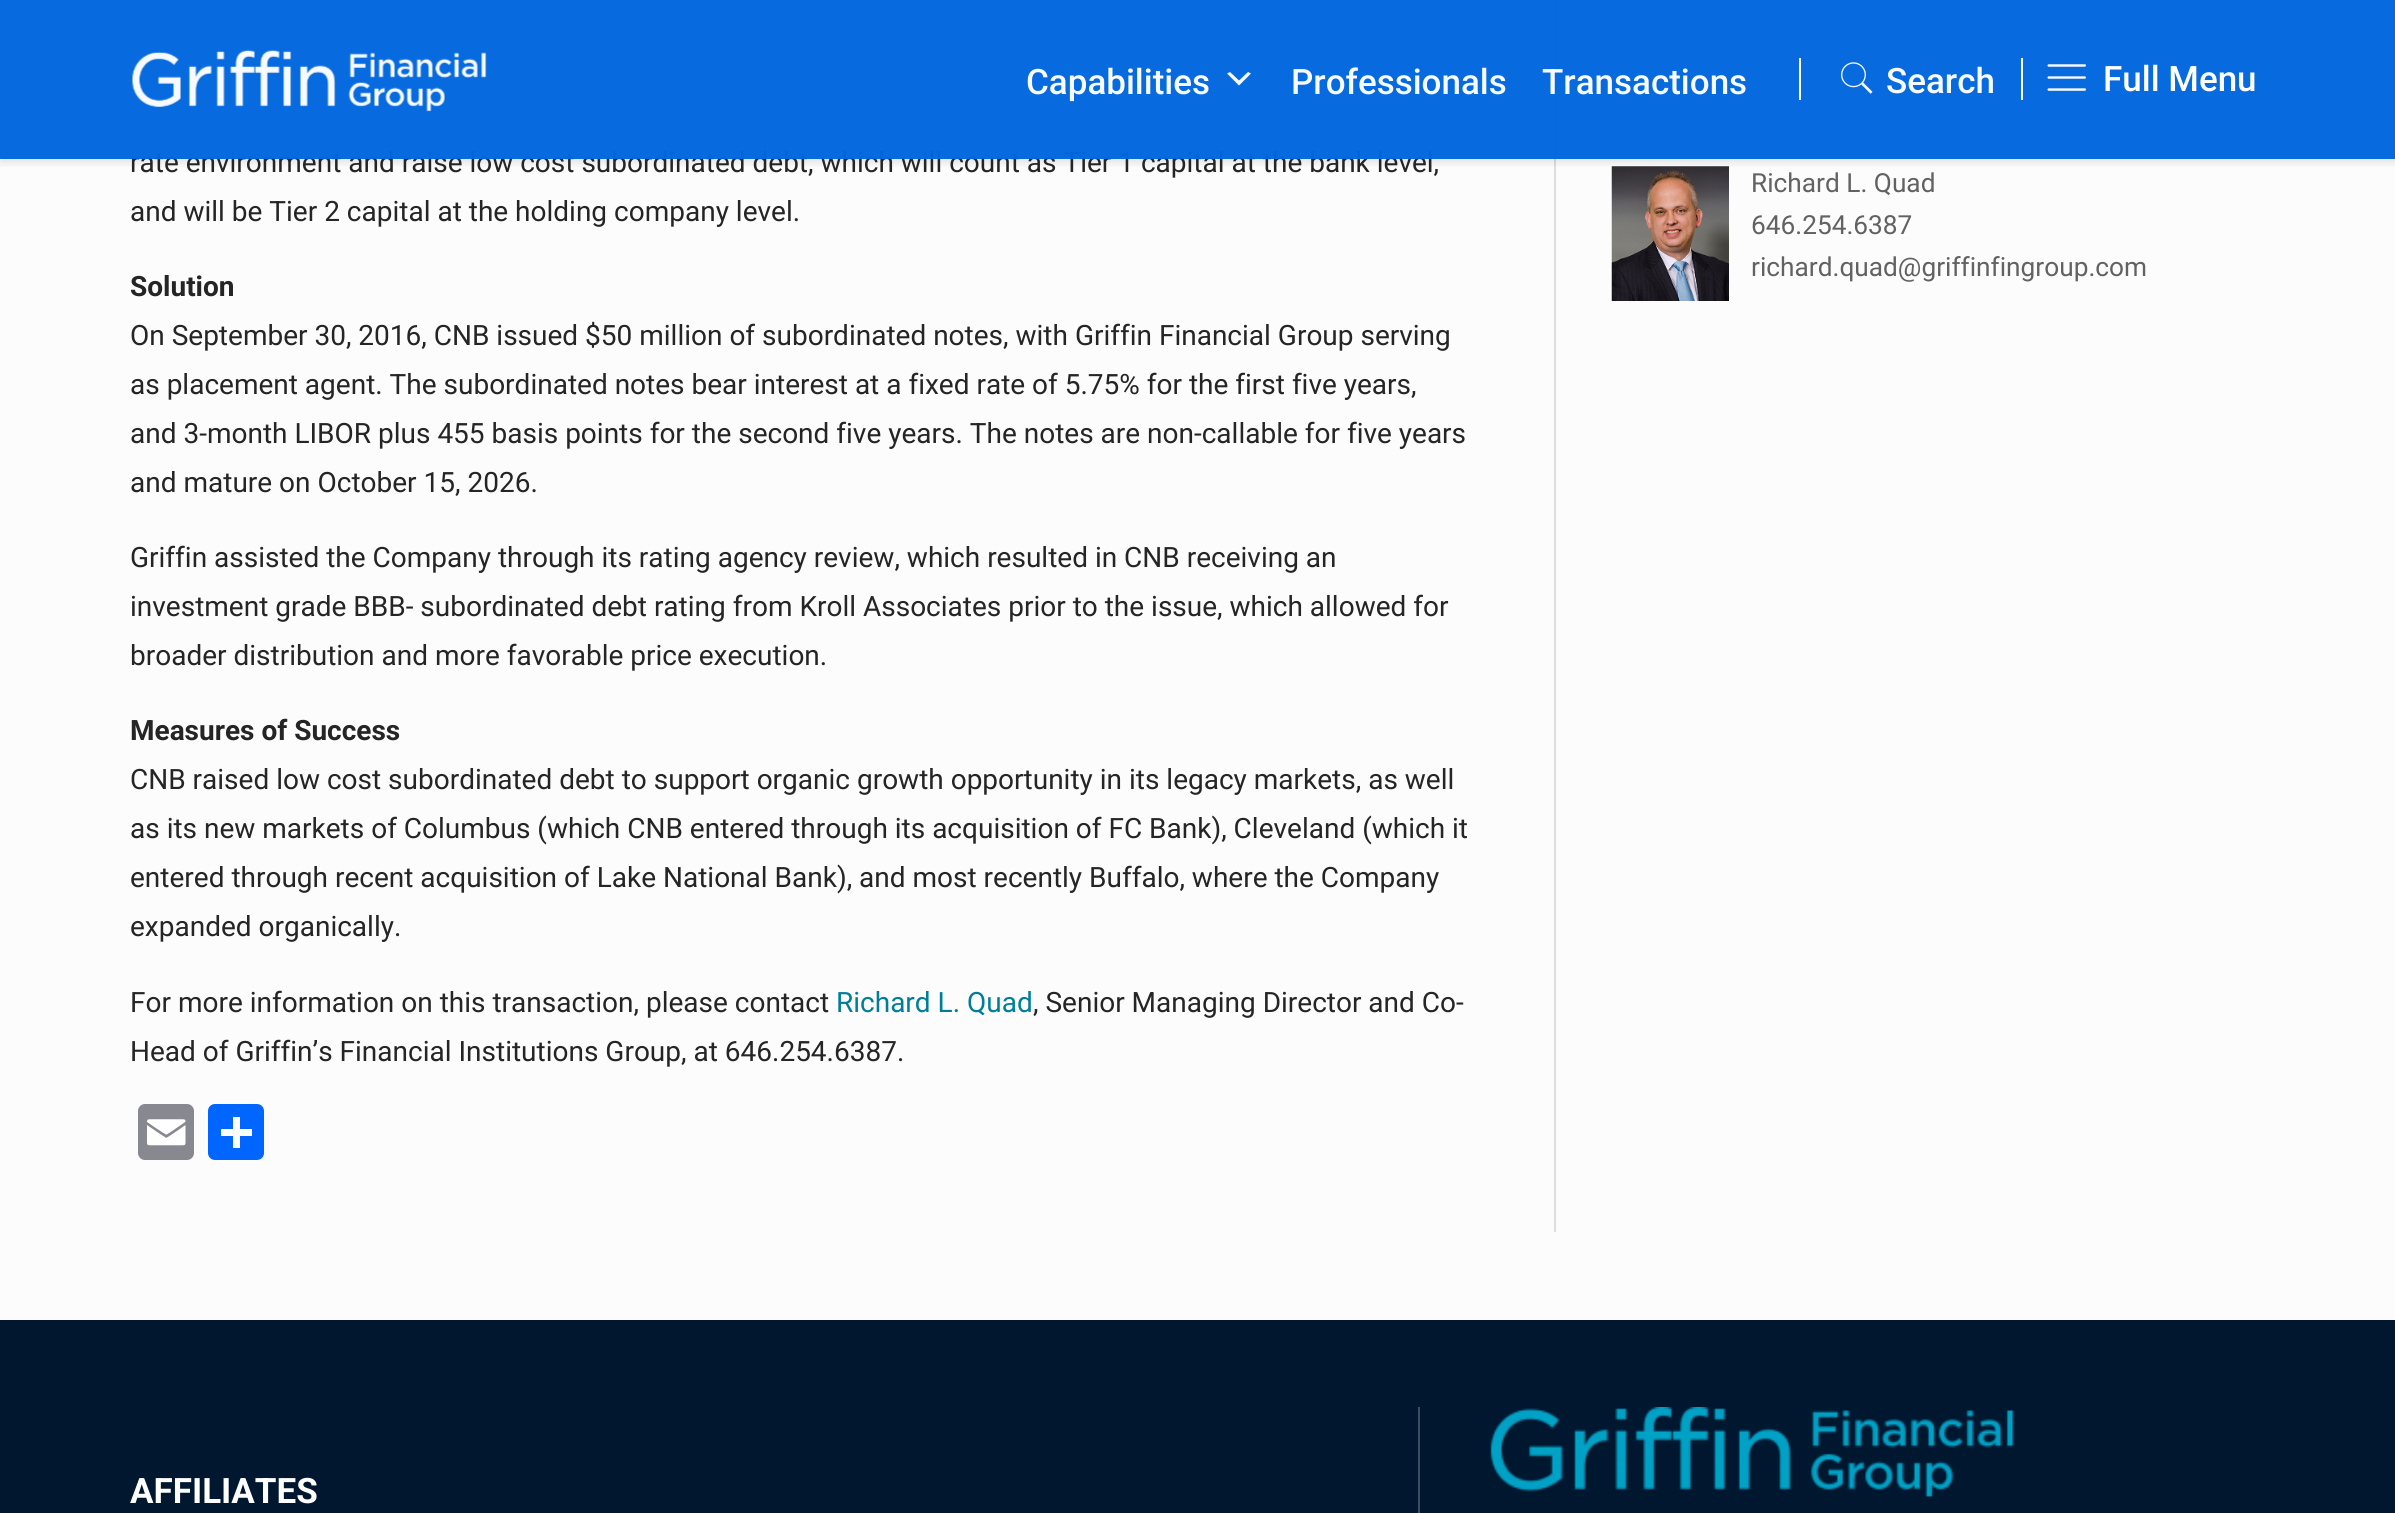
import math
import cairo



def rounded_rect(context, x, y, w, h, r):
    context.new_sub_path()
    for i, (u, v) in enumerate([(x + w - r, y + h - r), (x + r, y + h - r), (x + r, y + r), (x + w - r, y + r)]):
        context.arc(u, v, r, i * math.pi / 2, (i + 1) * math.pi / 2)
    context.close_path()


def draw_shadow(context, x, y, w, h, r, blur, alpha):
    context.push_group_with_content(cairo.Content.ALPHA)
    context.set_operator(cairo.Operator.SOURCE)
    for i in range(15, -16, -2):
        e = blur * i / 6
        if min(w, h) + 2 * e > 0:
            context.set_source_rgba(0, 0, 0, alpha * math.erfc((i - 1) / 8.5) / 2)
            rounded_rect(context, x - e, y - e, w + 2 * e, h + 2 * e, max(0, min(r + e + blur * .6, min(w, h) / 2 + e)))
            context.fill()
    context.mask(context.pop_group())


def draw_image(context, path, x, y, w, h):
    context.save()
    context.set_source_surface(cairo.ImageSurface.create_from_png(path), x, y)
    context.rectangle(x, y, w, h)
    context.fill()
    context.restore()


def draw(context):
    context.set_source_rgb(252 / 255, 252 / 255, 252 / 255)
    context.paint()
    context.set_source_rgb(221 / 255, 221 / 255, 221 / 255)
    context.rectangle(1554, 0, 2, 1232)
    context.fill()
    draw_image(context, "images/5.png", 1611, 166, 118, 135)
    context.save()
    context.rectangle(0, 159, 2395, 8)
    context.clip()
    context.set_source_rgb(0, 0, 0)
    draw_shadow(context, 0, 4, 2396, 159, 0, 4.5, 0.1)
    context.restore()
    context.set_source_rgb(136 / 255, 137 / 255, 144 / 255)
    rounded_rect(context, 138, 1104, 56, 56, 7)
    context.fill()
    draw_image(context, "images/4.png", 147, 1119, 39, 27)
    context.set_source_rgb(1 / 255, 102 / 255, 1)
    rounded_rect(context, 208, 1104, 56, 56, 7)
    context.fill()
    context.set_source_rgb(1, 1, 1)
    context.rectangle(233, 1117, 7, 31)
    context.fill()
    context.rectangle(221, 1129, 31, 7)
    context.fill()
    context.set_source_rgb(0, 23 / 255, 48 / 255)
    context.rectangle(0, 1320, 2395, 193)
    context.fill()
    context.set_source_rgb(60 / 255, 77 / 255, 96 / 255)
    context.rectangle(1418, 1407, 2, 106)
    context.fill()
    draw_image(context, "images/6.png", 1490, 1407, 525, 91)
    context.select_font_face("Roboto")
    context.set_font_size(28)
    context.set_source_rgb(37 / 255, 37 / 255, 37 / 255)
    context.move_to(130, 172)
    context.show_text("rate environment and raise low cost subordinated debt, which will count as Tier 1 capital at the bank level,")
    context.set_source_rgba(1 / 255, 103 / 255, 222 / 255, 0.97)
    context.rectangle(0, 0, 2395, 159)
    context.fill()
    context.select_font_face("Roboto Medium")
    context.set_font_size(35)
    context.set_source_rgb(248 / 255, 251 / 255, 254 / 255)
    context.move_to(1542, 94)
    context.show_text("Transactions")
    context.move_to(1291, 94)
    context.show_text("Professionals")
    context.set_source_rgba(1, 1, 1, 0.97)
    context.new_path()
    context.move_to(1230, 72)
    context.line_to(1239, 80.5)
    context.line_to(1248, 72)
    context.line_to(1251, 73.5)
    context.line_to(1239, 85.5)
    context.line_to(1227, 73.5)
    context.close_path()
    context.fill()
    context.set_source_rgb(248 / 255, 251 / 255, 254 / 255)
    context.move_to(1026, 94)
    context.show_text("Capabilities")
    context.set_source_rgb(1, 1, 1)
    context.move_to(2103, 91)
    context.show_text("Full Menu")
    draw_image(context, "images/3.png", 2047, 64, 39, 27)
    context.set_source_rgb(248 / 255, 251 / 255, 254 / 255)
    context.move_to(1886, 93)
    context.show_text("Search")
    draw_image(context, "images/2.png", 1841, 62, 32, 32)
    context.set_source_rgb(1, 1, 1)
    context.rectangle(1799, 58, 2, 42)
    context.fill()
    context.rectangle(2021, 58, 2, 42)
    context.fill()
    draw_image(context, "images/1.png", 131, 50, 356, 62)
    context.select_font_face("Roboto")
    context.set_font_size(28)
    context.set_source_rgb(37 / 255, 37 / 255, 37 / 255)
    context.move_to(130, 221)
    context.show_text("and will be Tier 2 capital at the holding company level.")
    context.select_font_face("Roboto", cairo.FontSlant.NORMAL, cairo.FontWeight.BOLD)
    context.move_to(130, 296)
    context.show_text("Solution")
    context.select_font_face("Roboto")
    context.move_to(130, 345)
    context.show_text("On September 30, 2016, CNB issued $50 million of subordinated notes, with Griffin Financial Group serving")
    context.move_to(130, 394)
    context.show_text("as placement agent. The subordinated notes bear interest at a fixed rate of 5.75% for the first five years,")
    context.move_to(130, 443)
    context.show_text("and 3-month LIBOR plus 455 basis points for the second five years. The notes are non-callable for five years")
    context.move_to(130, 492)
    context.show_text("and mature on October 15, 2026.")
    context.move_to(130, 567)
    context.show_text("Griffin assisted the Company through its rating agency review, which resulted in CNB receiving an")
    context.move_to(130, 616)
    context.show_text("investment grade BBB- subordinated debt rating from Kroll Associates prior to the issue, which allowed for")
    context.move_to(130, 665)
    context.show_text("broader distribution and more favorable price execution.")
    context.select_font_face("Roboto", cairo.FontSlant.NORMAL, cairo.FontWeight.BOLD)
    context.move_to(130, 740)
    context.show_text("Measures of Success")
    context.select_font_face("Roboto")
    context.move_to(130, 789)
    context.show_text("CNB raised low cost subordinated debt to support organic growth opportunity in its legacy markets, as well")
    context.move_to(130, 838)
    context.show_text("as its new markets of Columbus (which CNB entered through its acquisition of FC Bank), Cleveland (which it")
    context.move_to(130, 887)
    context.show_text("entered through recent acquisition of Lake National Bank), and most recently Buffalo, where the Company")
    context.move_to(130, 936)
    context.show_text("expanded organically.")
    context.move_to(130, 1012)
    context.show_text("For more information on this transaction, please contact")
    context.set_source_rgb(0, 125 / 255, 153 / 255)
    context.move_to(836, 1012)
    context.show_text("Richard L. Quad")
    context.set_source_rgb(37 / 255, 37 / 255, 37 / 255)
    context.move_to(1033, 1012)
    context.show_text(", Senior Managing Director and Co-")
    context.move_to(130, 1061)
    context.show_text("Head of Griffin’s Financial Institutions Group, at 646.254.6387.")
    context.set_font_size(26.25)
    context.set_source_rgb(98 / 255, 98 / 255, 98 / 255)
    context.move_to(1751, 192)
    context.show_text("Richard L. Quad")
    context.move_to(1751, 234)
    context.show_text("646.254.6387")
    context.move_to(1751, 276)
    context.show_text("richard.quad@griffinfingroup.com")
    context.select_font_face("Roboto", cairo.FontSlant.NORMAL, cairo.FontWeight.BOLD)
    context.set_font_size(35)
    context.set_source_rgb(1, 1, 1)
    context.move_to(130, 1503)
    context.show_text("AFFILIATES")


surface = cairo.ImageSurface(cairo.Format.RGB24, 2395, 1513)
context = cairo.Context(surface)
options = cairo.FontOptions()
options.set_hint_metrics(cairo.HintMetrics.OFF)
options.set_hint_style(cairo.HintStyle.NONE)
context.set_font_options(options)
context.set_miter_limit(4)
draw(context)
surface.write_to_png("out.png")
